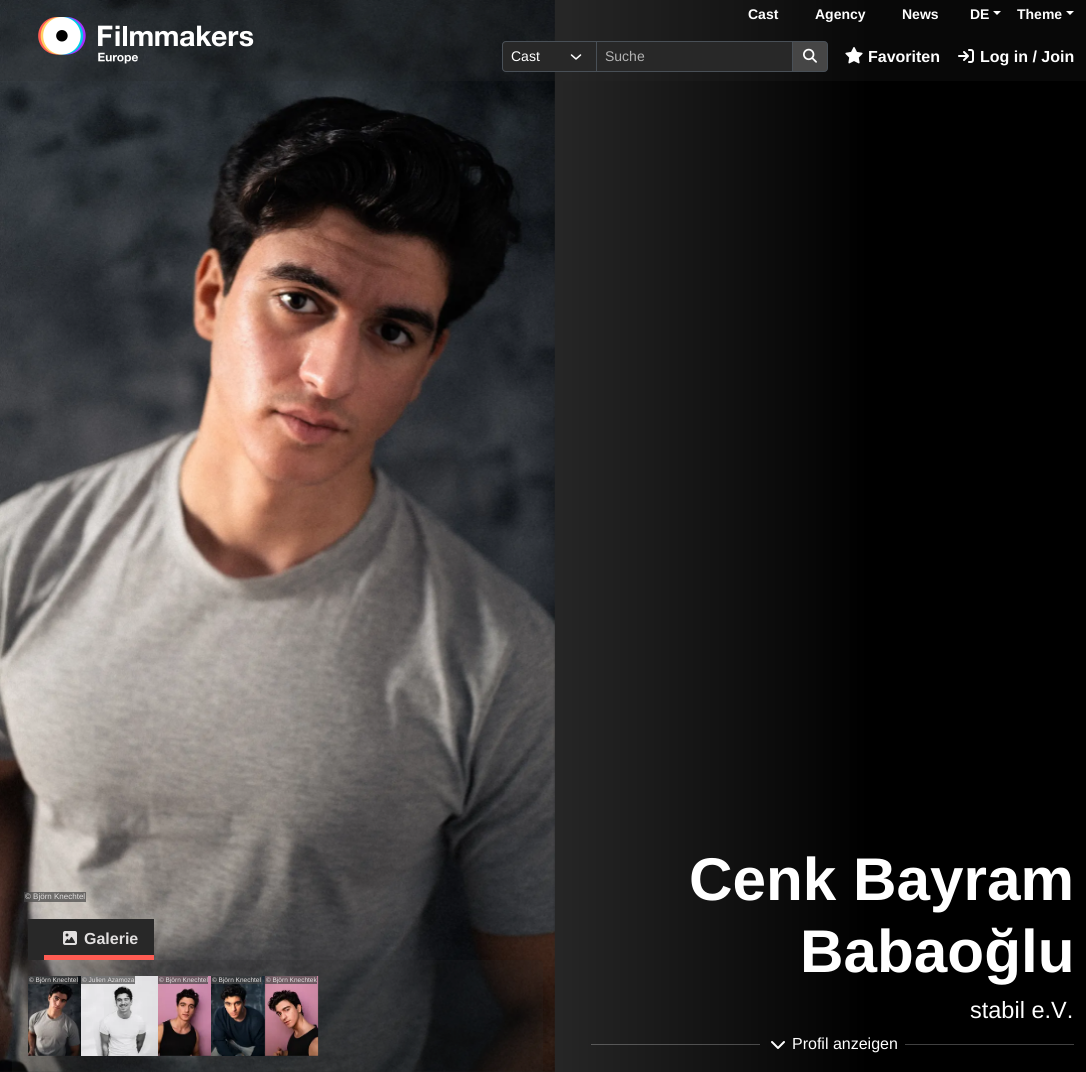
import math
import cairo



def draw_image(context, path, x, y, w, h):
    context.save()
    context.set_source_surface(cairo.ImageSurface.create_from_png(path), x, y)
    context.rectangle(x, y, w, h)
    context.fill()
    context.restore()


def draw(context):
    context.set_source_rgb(40 / 255, 40 / 255, 40 / 255)
    context.paint()
    draw_image(context, "images/5.png", 0, 0, 555, 1072)
    gradient = cairo.LinearGradient(1086, 536, 543, 536)
    gradient.add_color_stop_rgba(0, 0, 0, 0, 1)
    gradient.add_color_stop_rgba(0.4, 0, 0, 0, 1)
    gradient.add_color_stop_rgba(1, 0, 0, 0, 0)
    context.set_source(gradient)
    context.rectangle(553, 0, 533, 1072)
    context.fill()
    context.set_source_rgba(40 / 255, 40 / 255, 40 / 255, 0.2)
    context.rectangle(0, 0, 1086, 81)
    context.fill()
    draw_image(context, "images/1.png", 38, 17, 216, 47)
    context.set_source_rgb(1, 1, 1)
    context.new_path()
    context.move_to(993, 11)
    context.line_to(1001, 11)
    context.line_to(997, 15)
    context.close_path()
    context.fill()
    context.new_path()
    context.move_to(1066, 11)
    context.line_to(1074, 11)
    context.line_to(1070, 15)
    context.close_path()
    context.fill()
    context.set_source_rgb(40 / 255, 40 / 255, 40 / 255)
    context.new_path()
    context.move_to(506, 41)
    context.line_to(597, 41)
    context.line_to(597, 72)
    context.line_to(506, 72)
    context.curve_to(504, 72, 502, 70, 502, 68)
    context.line_to(502, 45)
    context.curve_to(502, 43, 504, 41, 506, 41)
    context.close_path()
    context.fill()
    context.new_path()
    context.move_to(571.5, 55)
    context.line_to(576, 59)
    context.line_to(580.5, 55)
    context.set_source_rgb(1, 1, 1)
    context.set_line_width(1.5)
    context.set_line_cap(cairo.LineCap.ROUND)
    context.set_line_join(cairo.LineJoin.ROUND)
    context.stroke()
    context.new_path()
    context.move_to(506, 41.5)
    context.line_to(596.5, 41.5)
    context.line_to(596.5, 71.5)
    context.line_to(506, 71.5)
    context.curve_to(504, 71.5, 502.5, 70, 502.5, 68)
    context.line_to(502.5, 45)
    context.curve_to(502.5, 43, 504, 41.5, 506, 41.5)
    context.close_path()
    context.set_source_rgb(73 / 255, 80 / 255, 87 / 255)
    context.set_line_width(1)
    context.set_line_cap(cairo.LineCap.BUTT)
    context.set_line_join(cairo.LineJoin.MITER)
    context.stroke()
    context.set_source_rgb(40 / 255, 40 / 255, 40 / 255)
    context.rectangle(596.5, 41.5, 196, 30)
    context.fill_preserve()
    context.set_source_rgb(73 / 255, 80 / 255, 87 / 255)
    context.stroke()
    context.set_source_rgb(70 / 255, 70 / 255, 70 / 255)
    context.new_path()
    context.move_to(792.5, 41.5)
    context.line_to(824, 41.5)
    context.curve_to(826, 41.5, 827.5, 43, 827.5, 45)
    context.line_to(827.5, 68)
    context.curve_to(827.5, 70, 826, 71.5, 824, 71.5)
    context.line_to(792.5, 71.5)
    context.close_path()
    context.fill_preserve()
    context.set_source_rgb(73 / 255, 80 / 255, 87 / 255)
    context.stroke()
    draw_image(context, "images/2.png", 803, 48, 14, 15)
    draw_image(context, "images/3.png", 845, 47, 18, 17)
    draw_image(context, "images/4.png", 958, 49, 16, 14)
    context.set_source_rgba(70 / 255, 70 / 255, 70 / 255, 0.7)
    context.rectangle(24, 892, 62, 10)
    context.fill()
    context.set_source_rgba(1, 1, 1, 0.25)
    context.rectangle(591, 1044, 169, 1)
    context.fill()
    draw_image(context, "images/6.png", 771, 1041, 14, 8)
    context.set_source_rgb(64 / 255, 64 / 255, 64 / 255)
    context.rectangle(905, 1044, 169, 1)
    context.fill()
    context.set_source_rgb(40 / 255, 40 / 255, 40 / 255)
    context.rectangle(28, 919, 126, 41)
    context.fill()
    context.set_source_rgb(254 / 255, 92 / 255, 83 / 255)
    context.rectangle(44, 955, 110, 5)
    context.fill()
    draw_image(context, "images/7.png", 63, 931, 14, 14)
    context.set_source_rgba(40 / 255, 40 / 255, 40 / 255, 0.2)
    context.new_path()
    context.move_to(16, 960)
    context.line_to(539, 960)
    context.curve_to(541, 960, 543, 962, 543, 964)
    context.line_to(543, 1072)
    context.line_to(12, 1072)
    context.line_to(12, 964)
    context.curve_to(12, 962, 14, 960, 16, 960)
    context.close_path()
    context.fill()
    draw_image(context, "images/8.png", 28, 976, 53, 80)
    context.set_source_rgba(70 / 255, 70 / 255, 70 / 255, 0.7)
    context.rectangle(28, 976, 50, 8)
    context.fill()
    draw_image(context, "images/9.png", 81, 976, 78, 80)
    context.rectangle(81, 976, 54, 8)
    context.fill()
    draw_image(context, "images/10.png", 158, 976, 53, 80)
    context.rectangle(158, 976, 50, 8)
    context.fill()
    draw_image(context, "images/11.png", 211, 976, 54, 80)
    context.rectangle(211, 976, 51, 8)
    context.fill()
    draw_image(context, "images/12.png", 264, 976, 55, 80)
    context.rectangle(265, 976, 52, 8)
    context.fill()
    context.select_font_face("Liberation Sans", cairo.FontSlant.NORMAL, cairo.FontWeight.BOLD)
    context.set_font_size(14)
    context.set_source_rgb(1, 1, 1)
    context.move_to(748, 19)
    context.show_text("Cast")
    context.move_to(815, 19)
    context.show_text("Agency")
    context.move_to(902, 19)
    context.show_text("News")
    context.move_to(970, 19)
    context.show_text("DE")
    context.move_to(1017, 19)
    context.show_text("Theme")
    context.select_font_face("Liberation Sans")
    context.move_to(511, 61)
    context.show_text("Cast")
    context.set_source_rgb(179 / 255, 179 / 255, 179 / 255)
    context.move_to(605, 61)
    context.show_text("Suche")
    context.select_font_face("Liberation Sans", cairo.FontSlant.NORMAL, cairo.FontWeight.BOLD)
    context.set_font_size(16)
    context.set_source_rgb(1, 1, 1)
    context.move_to(868, 62)
    context.show_text("Favoriten")
    context.move_to(980, 62)
    context.show_text("Log in / Join")
    context.select_font_face("Liberation Sans")
    context.set_font_size(8)
    context.set_source_rgb(225 / 255, 223 / 255, 223 / 255)
    context.move_to(25, 899)
    context.show_text("© Björn Knechtel")
    context.select_font_face("Liberation Sans", cairo.FontSlant.NORMAL, cairo.FontWeight.BOLD)
    context.set_font_size(60.25)
    context.set_source_rgb(1, 1, 1)
    context.move_to(689, 900)
    context.show_text("Cenk Bayram")
    context.move_to(800, 972)
    context.show_text("Babaoğlu")
    context.select_font_face("Liberation Sans")
    context.set_font_size(23.5)
    context.move_to(970, 1018)
    context.show_text("stabil e.V.")
    context.set_font_size(16)
    context.move_to(792, 1049)
    context.show_text("Profil anzeigen")
    context.select_font_face("Liberation Sans", cairo.FontSlant.NORMAL, cairo.FontWeight.BOLD)
    context.set_source_rgb(225 / 255, 223 / 255, 223 / 255)
    context.move_to(84, 944)
    context.show_text("Galerie")
    context.select_font_face("Liberation Sans")
    context.set_font_size(6.5)
    context.move_to(29, 982)
    context.show_text("© Björn Knechtel")
    context.move_to(82, 982)
    context.show_text("© Julien Azamoza")
    context.move_to(159, 982)
    context.show_text("© Björn Knechtel")
    context.move_to(212, 982)
    context.show_text("© Björn Knechtel")
    context.move_to(266, 982)
    context.show_text("© Björn Knechtek")


surface = cairo.ImageSurface(cairo.Format.RGB24, 1086, 1072)
context = cairo.Context(surface)
options = cairo.FontOptions()
options.set_hint_metrics(cairo.HintMetrics.OFF)
options.set_hint_style(cairo.HintStyle.NONE)
context.set_font_options(options)
context.set_miter_limit(4)
draw(context)
surface.write_to_png("out.png")
